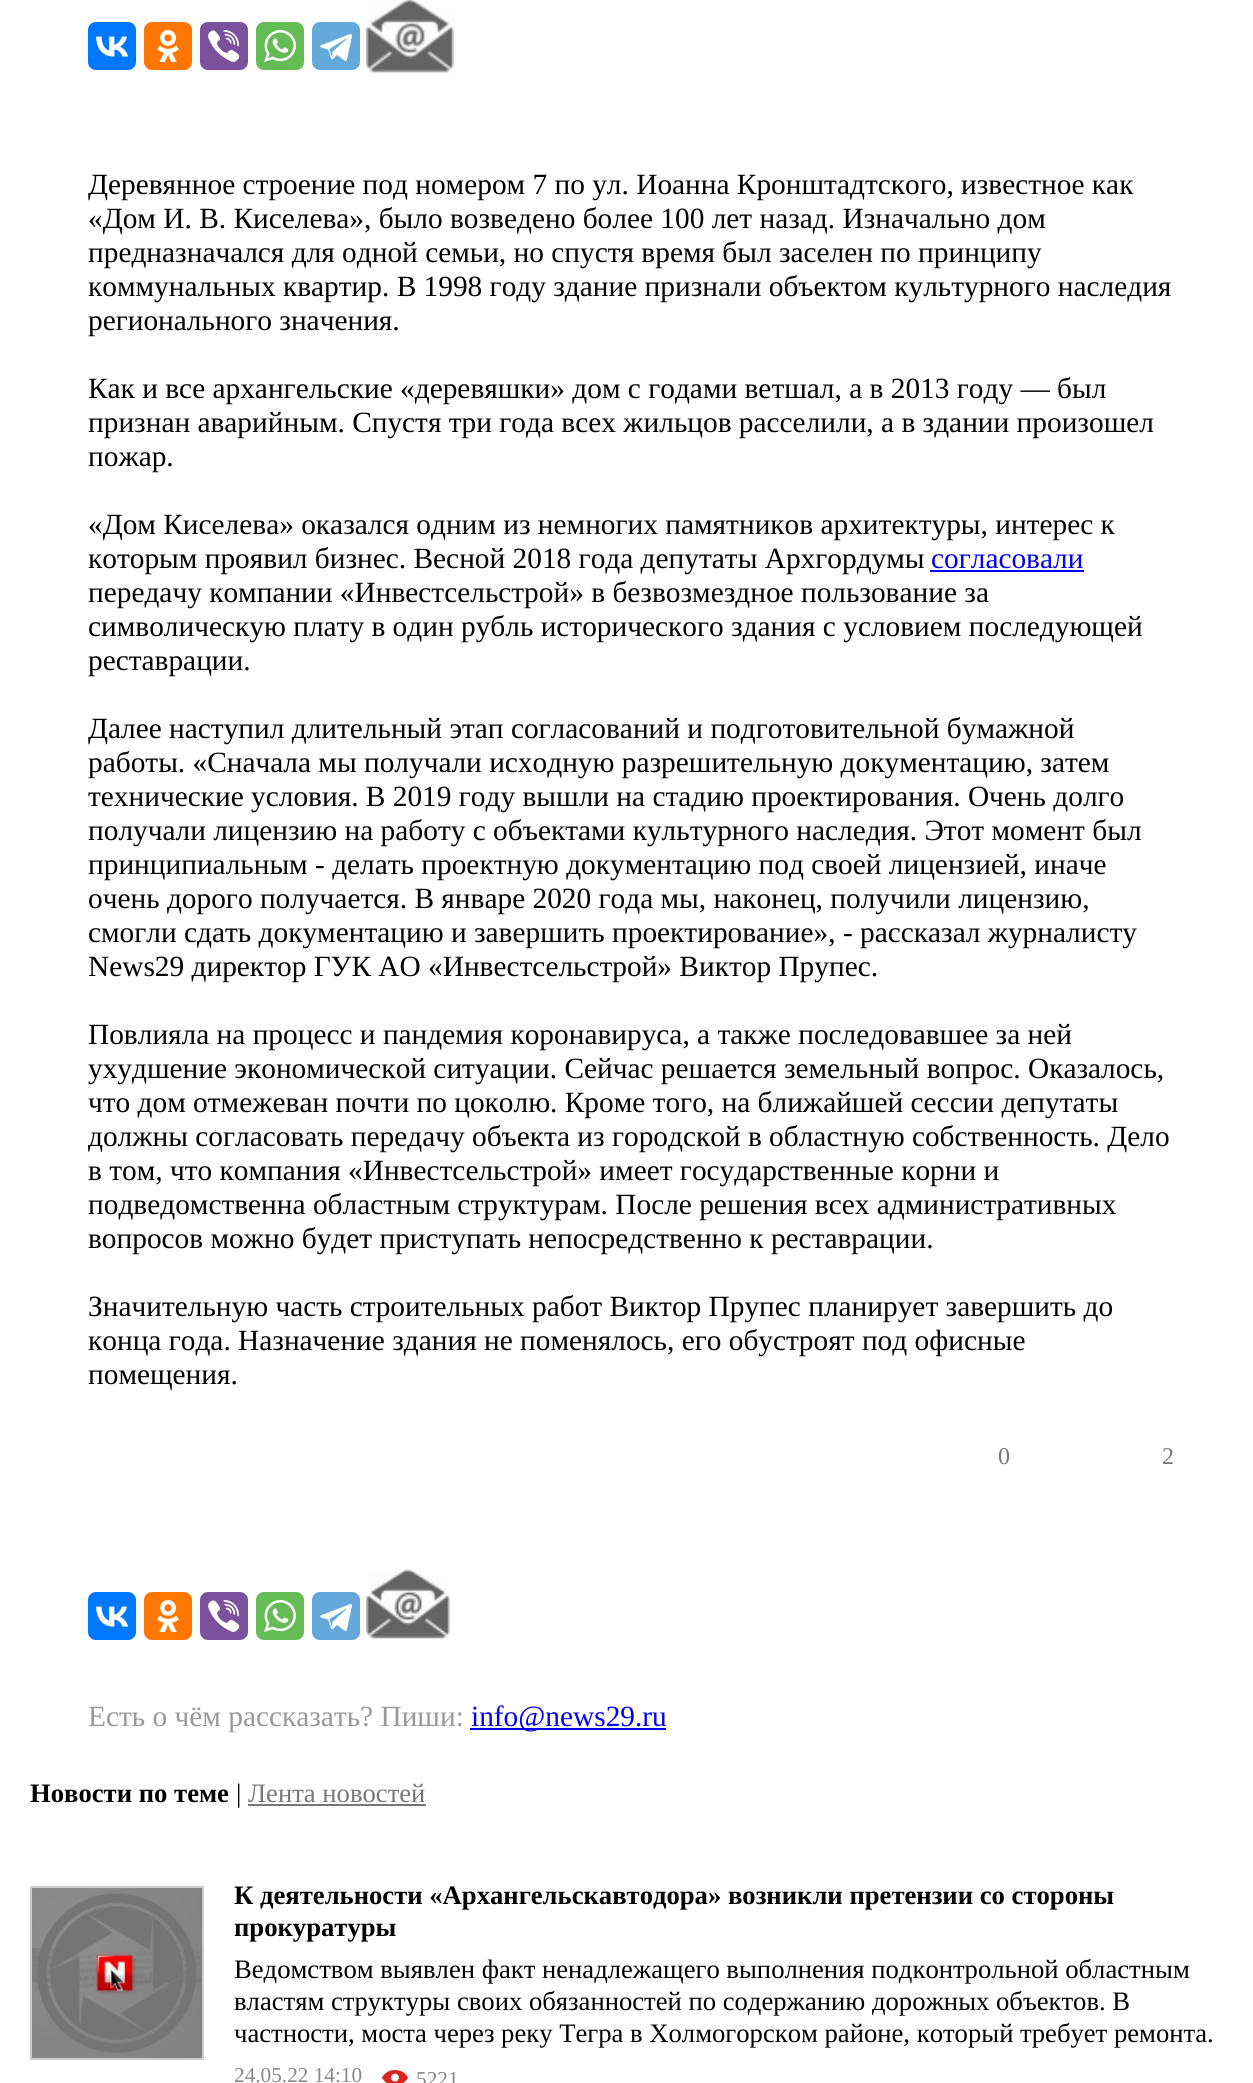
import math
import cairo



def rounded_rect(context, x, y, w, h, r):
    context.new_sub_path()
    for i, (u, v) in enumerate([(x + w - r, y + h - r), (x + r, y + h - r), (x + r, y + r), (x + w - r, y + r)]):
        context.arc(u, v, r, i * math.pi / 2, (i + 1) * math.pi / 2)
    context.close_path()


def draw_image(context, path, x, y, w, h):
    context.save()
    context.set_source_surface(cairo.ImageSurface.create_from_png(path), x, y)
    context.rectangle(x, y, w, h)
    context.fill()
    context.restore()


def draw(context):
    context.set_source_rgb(1, 1, 1)
    context.paint()
    context.set_source_rgb(0, 119 / 255, 1)
    rounded_rect(context, 88, 22, 48, 48, 8)
    context.fill()
    draw_image(context, "images/1.png", 96, 36, 33, 21)
    context.set_source_rgb(1, 119 / 255, 0)
    rounded_rect(context, 144, 22, 48, 48, 8)
    context.fill()
    draw_image(context, "images/2.png", 157, 30, 22, 32)
    context.set_source_rgb(123 / 255, 81 / 255, 157 / 255)
    rounded_rect(context, 200, 22, 48, 48, 8)
    context.fill()
    draw_image(context, "images/3.png", 208, 30, 32, 32)
    context.set_source_rgb(101 / 255, 188 / 255, 84 / 255)
    rounded_rect(context, 256, 22, 48, 48, 8)
    context.fill()
    draw_image(context, "images/4.png", 264, 30, 32, 32)
    context.set_source_rgb(100 / 255, 169 / 255, 220 / 255)
    rounded_rect(context, 312, 22, 48, 48, 8)
    context.fill()
    draw_image(context, "images/5.png", 320, 34, 32, 27)
    draw_image(context, "images/6.png", 366, 0, 88, 73)
    context.set_source_rgb(0, 0, 238 / 255)
    context.rectangle(930, 570, 154, 2)
    context.fill()
    context.set_source_rgb(0, 119 / 255, 1)
    rounded_rect(context, 88, 1592, 48, 48, 8)
    context.fill()
    draw_image(context, "images/1.png", 96, 1606, 33, 21)
    context.set_source_rgb(1, 119 / 255, 0)
    rounded_rect(context, 144, 1592, 48, 48, 8)
    context.fill()
    draw_image(context, "images/2.png", 157, 1600, 22, 32)
    context.set_source_rgb(123 / 255, 81 / 255, 157 / 255)
    rounded_rect(context, 200, 1592, 48, 48, 8)
    context.fill()
    draw_image(context, "images/3.png", 208, 1600, 32, 32)
    context.set_source_rgb(101 / 255, 188 / 255, 84 / 255)
    rounded_rect(context, 256, 1592, 48, 48, 8)
    context.fill()
    draw_image(context, "images/4.png", 264, 1600, 32, 32)
    context.set_source_rgb(100 / 255, 169 / 255, 220 / 255)
    rounded_rect(context, 312, 1592, 48, 48, 8)
    context.fill()
    draw_image(context, "images/5.png", 320, 1604, 32, 27)
    draw_image(context, "images/7.png", 366, 1569, 84, 70)
    context.set_source_rgb(0, 0, 238 / 255)
    context.rectangle(470, 1728, 196, 2)
    context.fill()
    context.set_source_rgb(119 / 255, 119 / 255, 119 / 255)
    context.rectangle(248, 1804, 178, 2)
    context.fill()
    context.rectangle(31, 1887, 172, 172)
    context.set_source_rgb(204 / 255, 204 / 255, 204 / 255)
    context.stroke()
    draw_image(context, "images/8.png", 32, 1888, 170, 170)
    draw_image(context, "images/9.png", 382, 2070, 26, 13)
    context.select_font_face("Liberation Serif")
    context.set_font_size(29.35)
    context.set_source_rgb(0, 0, 0)
    context.move_to(88, 194)
    context.show_text("Деревянное строение под номером 7 по ул. Иоанна Кронштадтского, известное как")
    context.move_to(88, 228)
    context.show_text("«Дом И. В. Киселева», было возведено более 100 лет назад. Изначально дом")
    context.move_to(88, 262)
    context.show_text("предназначался для одной семьи, но спустя время был заселен по принципу")
    context.move_to(88, 296)
    context.show_text("коммунальных квартир. В 1998 году здание признали объектом культурного наследия")
    context.move_to(88, 330)
    context.show_text("регионального значения.")
    context.move_to(88, 398)
    context.show_text("Как и все архангельские «деревяшки» дом с годами ветшал, а в 2013 году — был")
    context.move_to(88, 432)
    context.show_text("признан аварийным. Спустя три года всех жильцов расселили, а в здании произошел")
    context.move_to(88, 466)
    context.show_text("пожар.")
    context.move_to(88, 534)
    context.show_text("«Дом Киселева» оказался одним из немногих памятников архитектуры, интерес к")
    context.move_to(88, 568)
    context.show_text("которым проявил бизнес. Весной 2018 года депутаты Архгордумы")
    context.set_source_rgb(0, 0, 238 / 255)
    context.move_to(931, 568)
    context.show_text("согласовали")
    context.set_source_rgb(0, 0, 0)
    context.move_to(88, 602)
    context.show_text("передачу компании «Инвестсельстрой» в безвозмездное пользование за")
    context.move_to(88, 636)
    context.show_text("символическую плату в один рубль исторического здания с условием последующей")
    context.move_to(88, 670)
    context.show_text("реставрации.")
    context.move_to(88, 738)
    context.show_text("Далее наступил длительный этап согласований и подготовительной бумажной")
    context.move_to(88, 772)
    context.show_text("работы. «Сначала мы получали исходную разрешительную документацию, затем")
    context.move_to(88, 806)
    context.show_text("технические условия. В 2019 году вышли на стадию проектирования. Очень долго")
    context.move_to(88, 840)
    context.show_text("получали лицензию на работу с объектами культурного наследия. Этот момент был")
    context.move_to(88, 874)
    context.show_text("принципиальным - делать проектную документацию под своей лицензией, иначе")
    context.move_to(88, 908)
    context.show_text("очень дорого получается. В январе 2020 года мы, наконец, получили лицензию,")
    context.move_to(88, 942)
    context.show_text("смогли сдать документацию и завершить проектирование», - рассказал журналисту")
    context.move_to(88, 976)
    context.show_text("News29 директор ГУК АО «Инвестсельстрой» Виктор Прупес.")
    context.move_to(88, 1044)
    context.show_text("Повлияла на процесс и пандемия коронавируса, а также последовавшее за ней")
    context.move_to(88, 1078)
    context.show_text("ухудшение экономической ситуации. Сейчас решается земельный вопрос. Оказалось,")
    context.move_to(88, 1112)
    context.show_text("что дом отмежеван почти по цоколю. Кроме того, на ближайшей сессии депутаты")
    context.move_to(88, 1146)
    context.show_text("должны согласовать передачу объекта из городской в областную собственность. Дело")
    context.move_to(88, 1180)
    context.show_text("в том, что компания «Инвестсельстрой» имеет государственные корни и")
    context.move_to(88, 1214)
    context.show_text("подведомственна областным структурам. После решения всех административных")
    context.move_to(88, 1248)
    context.show_text("вопросов можно будет приступать непосредственно к реставрации.")
    context.move_to(88, 1316)
    context.show_text("Значительную часть строительных работ Виктор Прупес планирует завершить до")
    context.move_to(88, 1350)
    context.show_text("конца года. Назначение здания не поменялось, его обустроят под офисные")
    context.move_to(88, 1384)
    context.show_text("помещения.")
    context.set_font_size(24)
    context.set_source_rgb(119 / 255, 119 / 255, 119 / 255)
    context.move_to(998, 1464)
    context.show_text("0")
    context.move_to(1162, 1464)
    context.show_text("2")
    context.set_font_size(29.35)
    context.set_source_rgb(153 / 255, 153 / 255, 153 / 255)
    context.move_to(88, 1726)
    context.show_text("Есть о чём рассказать? Пиши:")
    context.set_source_rgb(0, 0, 238 / 255)
    context.move_to(471, 1726)
    context.show_text("info@news29.ru")
    context.select_font_face("Liberation Serif", cairo.FontSlant.NORMAL, cairo.FontWeight.BOLD)
    context.set_font_size(26.65)
    context.set_source_rgb(0, 0, 0)
    context.move_to(30, 1802)
    context.show_text("Новости по теме")
    context.select_font_face("Liberation Serif")
    context.move_to(236, 1802)
    context.show_text("|")
    context.set_source_rgb(119 / 255, 119 / 255, 119 / 255)
    context.move_to(248, 1802)
    context.show_text("Лента новостей")
    context.select_font_face("Liberation Serif", cairo.FontSlant.NORMAL, cairo.FontWeight.BOLD)
    context.set_source_rgb(0, 0, 0)
    context.move_to(234, 1904)
    context.show_text("К деятельности «Архангельскавтодора» возникли претензии со стороны")
    context.move_to(234, 1936)
    context.show_text("прокуратуры")
    context.select_font_face("Liberation Serif")
    context.move_to(234, 1978)
    context.show_text("Ведомством выявлен факт ненадлежащего выполнения подконтрольной областным")
    context.move_to(234, 2010)
    context.show_text("властям структуры своих обязанностей по содержанию дорожных объектов. В")
    context.move_to(234, 2042)
    context.show_text("частности, моста через реку Тегра в Холмогорском районе, который требует ремонта.")
    context.set_font_size(21.25)
    context.set_source_rgb(136 / 255, 136 / 255, 136 / 255)
    context.move_to(234, 2082)
    context.show_text("24.05.22 14:10")
    context.move_to(416, 2086)
    context.show_text("5221")


surface = cairo.ImageSurface(cairo.Format.RGB24, 1253, 2083)
context = cairo.Context(surface)
options = cairo.FontOptions()
options.set_hint_metrics(cairo.HintMetrics.OFF)
options.set_hint_style(cairo.HintStyle.NONE)
context.set_font_options(options)
context.set_miter_limit(4)
draw(context)
surface.write_to_png("out.png")
